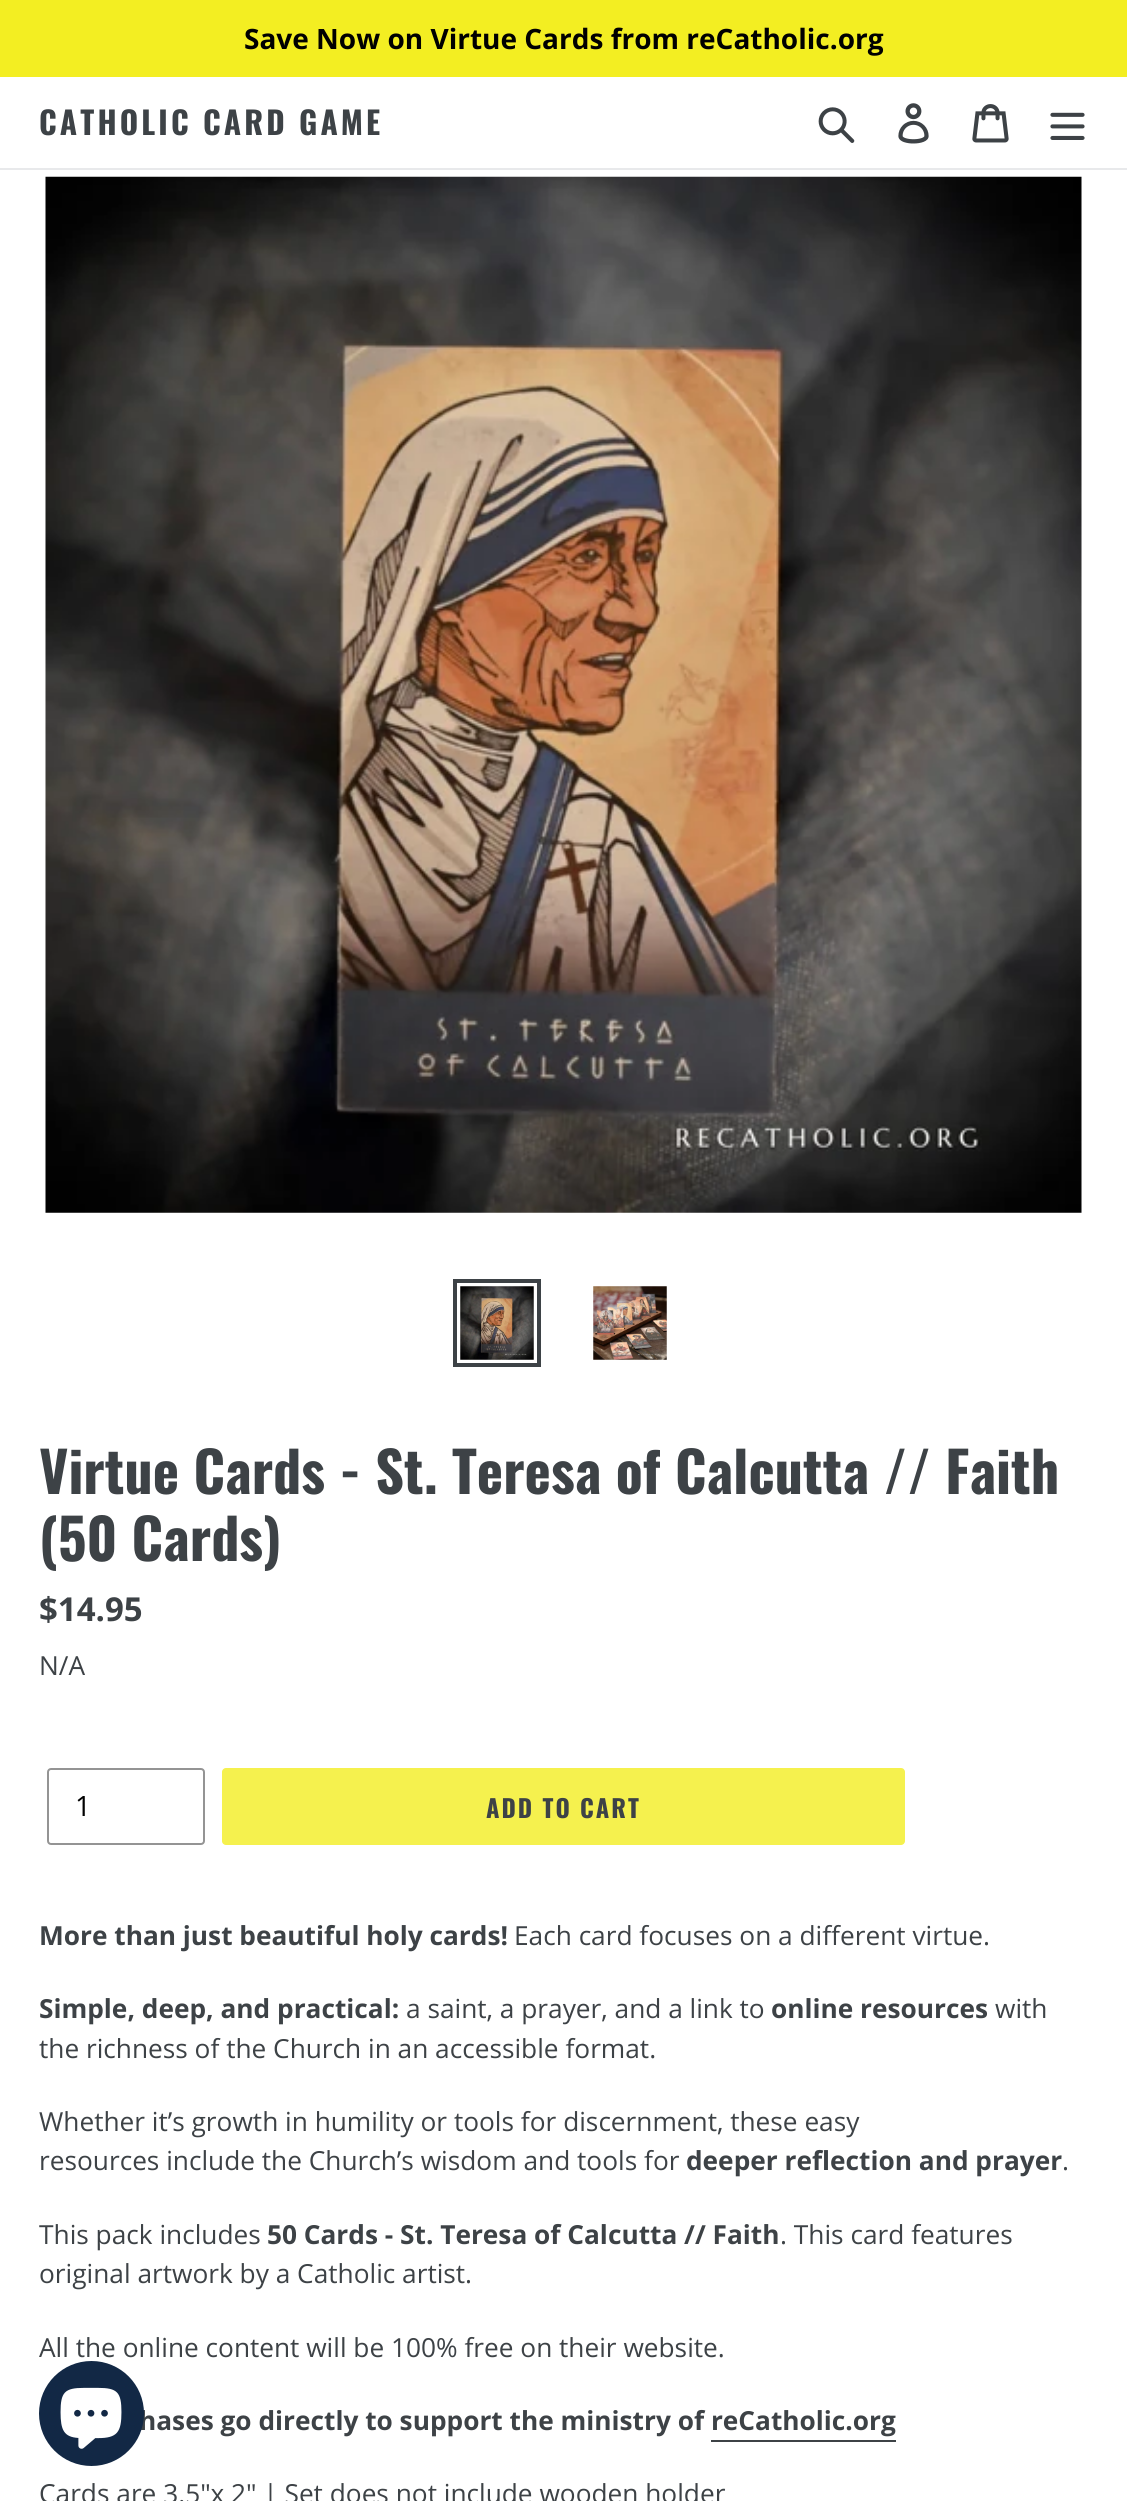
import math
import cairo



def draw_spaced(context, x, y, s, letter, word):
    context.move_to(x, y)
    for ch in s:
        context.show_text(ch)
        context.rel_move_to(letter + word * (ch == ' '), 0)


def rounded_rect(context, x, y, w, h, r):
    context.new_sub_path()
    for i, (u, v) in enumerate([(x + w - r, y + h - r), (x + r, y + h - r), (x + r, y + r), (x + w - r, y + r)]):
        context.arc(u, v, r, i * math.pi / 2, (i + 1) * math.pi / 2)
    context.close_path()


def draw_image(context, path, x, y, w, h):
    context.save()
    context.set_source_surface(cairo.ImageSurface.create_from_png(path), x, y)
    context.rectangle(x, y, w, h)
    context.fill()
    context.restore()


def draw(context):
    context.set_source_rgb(1, 1, 1)
    context.paint()
    context.set_source_rgb(243 / 255, 238 / 255, 34 / 255)
    context.rectangle(0, 0, 1127, 77)
    context.fill()
    context.set_source_rgb(232 / 255, 233 / 255, 235 / 255)
    context.rectangle(0, 168, 1127, 2)
    context.fill()
    draw_image(context, "images/1.png", 818, 107, 37, 36)
    draw_image(context, "images/2.png", 898, 103, 31, 41)
    draw_image(context, "images/3.png", 972, 104, 37, 39)
    draw_image(context, "images/4.png", 1050, 112, 35, 28)
    draw_image(context, "images/5.png", 45, 176, 1037, 1037)
    context.rectangle(455, 1281, 84, 84)
    context.set_source_rgb(61 / 255, 66 / 255, 70 / 255)
    context.set_line_width(4)
    context.stroke()
    draw_image(context, "images/6.png", 460, 1286, 74, 74)
    draw_image(context, "images/7.png", 593, 1286, 74, 74)
    rounded_rect(context, 48, 1769, 156, 75, 3)
    context.set_source_rgb(148 / 255, 148 / 255, 148 / 255)
    context.set_line_width(2)
    context.stroke()
    context.set_source_rgb(245 / 255, 241 / 255, 78 / 255)
    rounded_rect(context, 222, 1768, 683, 77, 4)
    context.fill()
    context.set_source_rgb(61 / 255, 66 / 255, 70 / 255)
    context.rectangle(711, 2440, 185, 2)
    context.fill()
    context.select_font_face("Open Sans", cairo.FontSlant.NORMAL, cairo.FontWeight.BOLD)
    context.set_font_size(28)
    context.set_source_rgb(0, 0, 0)
    context.move_to(244, 49)
    context.show_text("Save Now on Virtue Cards from reCatholic.org")
    context.select_font_face("Oswald", cairo.FontSlant.NORMAL, cairo.FontWeight.BOLD)
    context.set_font_size(31.5)
    context.set_source_rgb(61 / 255, 66 / 255, 70 / 255)
    draw_spaced(context, 39, 135, "CATHOLIC CARD GAME", 3.1, 0)
    context.set_font_size(56)
    context.move_to(39, 1494)
    context.show_text("Virtue Cards - St. Teresa of Calcutta // Faith")
    context.move_to(39, 1561)
    context.show_text("(50 Cards)")
    context.select_font_face("Open Sans", cairo.FontSlant.NORMAL, cairo.FontWeight.BOLD)
    context.set_font_size(33)
    context.move_to(39, 1621)
    context.show_text("$14.95")
    context.select_font_face("Open Sans")
    context.set_font_size(26.25)
    context.move_to(39, 1675)
    context.show_text("N/A")
    context.set_font_size(28)
    context.set_source_rgb(0, 0, 0)
    context.move_to(75, 1816)
    context.show_text("1")
    context.select_font_face("Oswald", cairo.FontSlant.NORMAL, cairo.FontWeight.BOLD)
    context.set_font_size(24.5)
    context.set_source_rgb(61 / 255, 66 / 255, 70 / 255)
    draw_spaced(context, 486, 1818, "ADD TO CART", 2, 0)
    context.select_font_face("Open Sans", cairo.FontSlant.NORMAL, cairo.FontWeight.BOLD)
    context.set_font_size(26.25)
    context.move_to(39, 1945)
    context.show_text("More than just beautiful holy cards!")
    context.select_font_face("Open Sans")
    context.move_to(514, 1945)
    context.show_text("Each card focuses on a different virtue.")
    context.select_font_face("Open Sans", cairo.FontSlant.NORMAL, cairo.FontWeight.BOLD)
    context.move_to(39, 2018)
    context.show_text("Simple, deep, and practical:")
    context.select_font_face("Open Sans")
    context.move_to(406, 2018)
    context.show_text("a saint, a prayer, and a link to")
    context.select_font_face("Open Sans", cairo.FontSlant.NORMAL, cairo.FontWeight.BOLD)
    context.move_to(771, 2018)
    context.show_text("online resources")
    context.select_font_face("Open Sans")
    context.move_to(995, 2018)
    context.show_text("with")
    context.move_to(39, 2058)
    context.show_text("the richness of the Church in an accessible format.")
    context.move_to(39, 2131)
    context.show_text("Whether it’s growth in humility or tools for discernment, these easy")
    context.move_to(39, 2170)
    context.show_text("resources include the Church’s wisdom and tools for")
    context.select_font_face("Open Sans", cairo.FontSlant.NORMAL, cairo.FontWeight.BOLD)
    context.move_to(686, 2170)
    context.show_text("deeper reflection and prayer")
    context.select_font_face("Open Sans")
    context.move_to(1062, 2170)
    context.show_text(".")
    context.move_to(39, 2244)
    context.show_text("This pack includes")
    context.select_font_face("Open Sans", cairo.FontSlant.NORMAL, cairo.FontWeight.BOLD)
    context.move_to(267, 2244)
    context.show_text("50 Cards - St. Teresa of Calcutta // Faith")
    context.select_font_face("Open Sans")
    context.move_to(780, 2244)
    context.show_text(". This card features")
    context.move_to(39, 2283)
    context.show_text("original artwork by a Catholic artist.")
    context.move_to(39, 2357)
    context.show_text("All the online content will be 100% free on their website.")
    context.select_font_face("Open Sans", cairo.FontSlant.NORMAL, cairo.FontWeight.BOLD)
    context.move_to(139, 2430)
    context.show_text("hases go directly to support the ministry of reCatholic.org")
    context.select_font_face("Open Sans")
    context.move_to(39, 2503)
    context.show_text("Cards are 3.5″x 2″ | Set does not include wooden holder")
    context.set_source_rgb(18 / 255, 40 / 255, 69 / 255)
    context.new_path()
    context.arc(91.5, 2413.5, 52.5, 0, 2 * math.pi)
    context.fill()
    draw_image(context, "images/8.png", 60, 2387, 62, 62)


surface = cairo.ImageSurface(cairo.Format.RGB24, 1127, 2501)
context = cairo.Context(surface)
options = cairo.FontOptions()
options.set_hint_metrics(cairo.HintMetrics.OFF)
options.set_hint_style(cairo.HintStyle.NONE)
context.set_font_options(options)
context.set_miter_limit(4)
draw(context)
surface.write_to_png("out.png")
